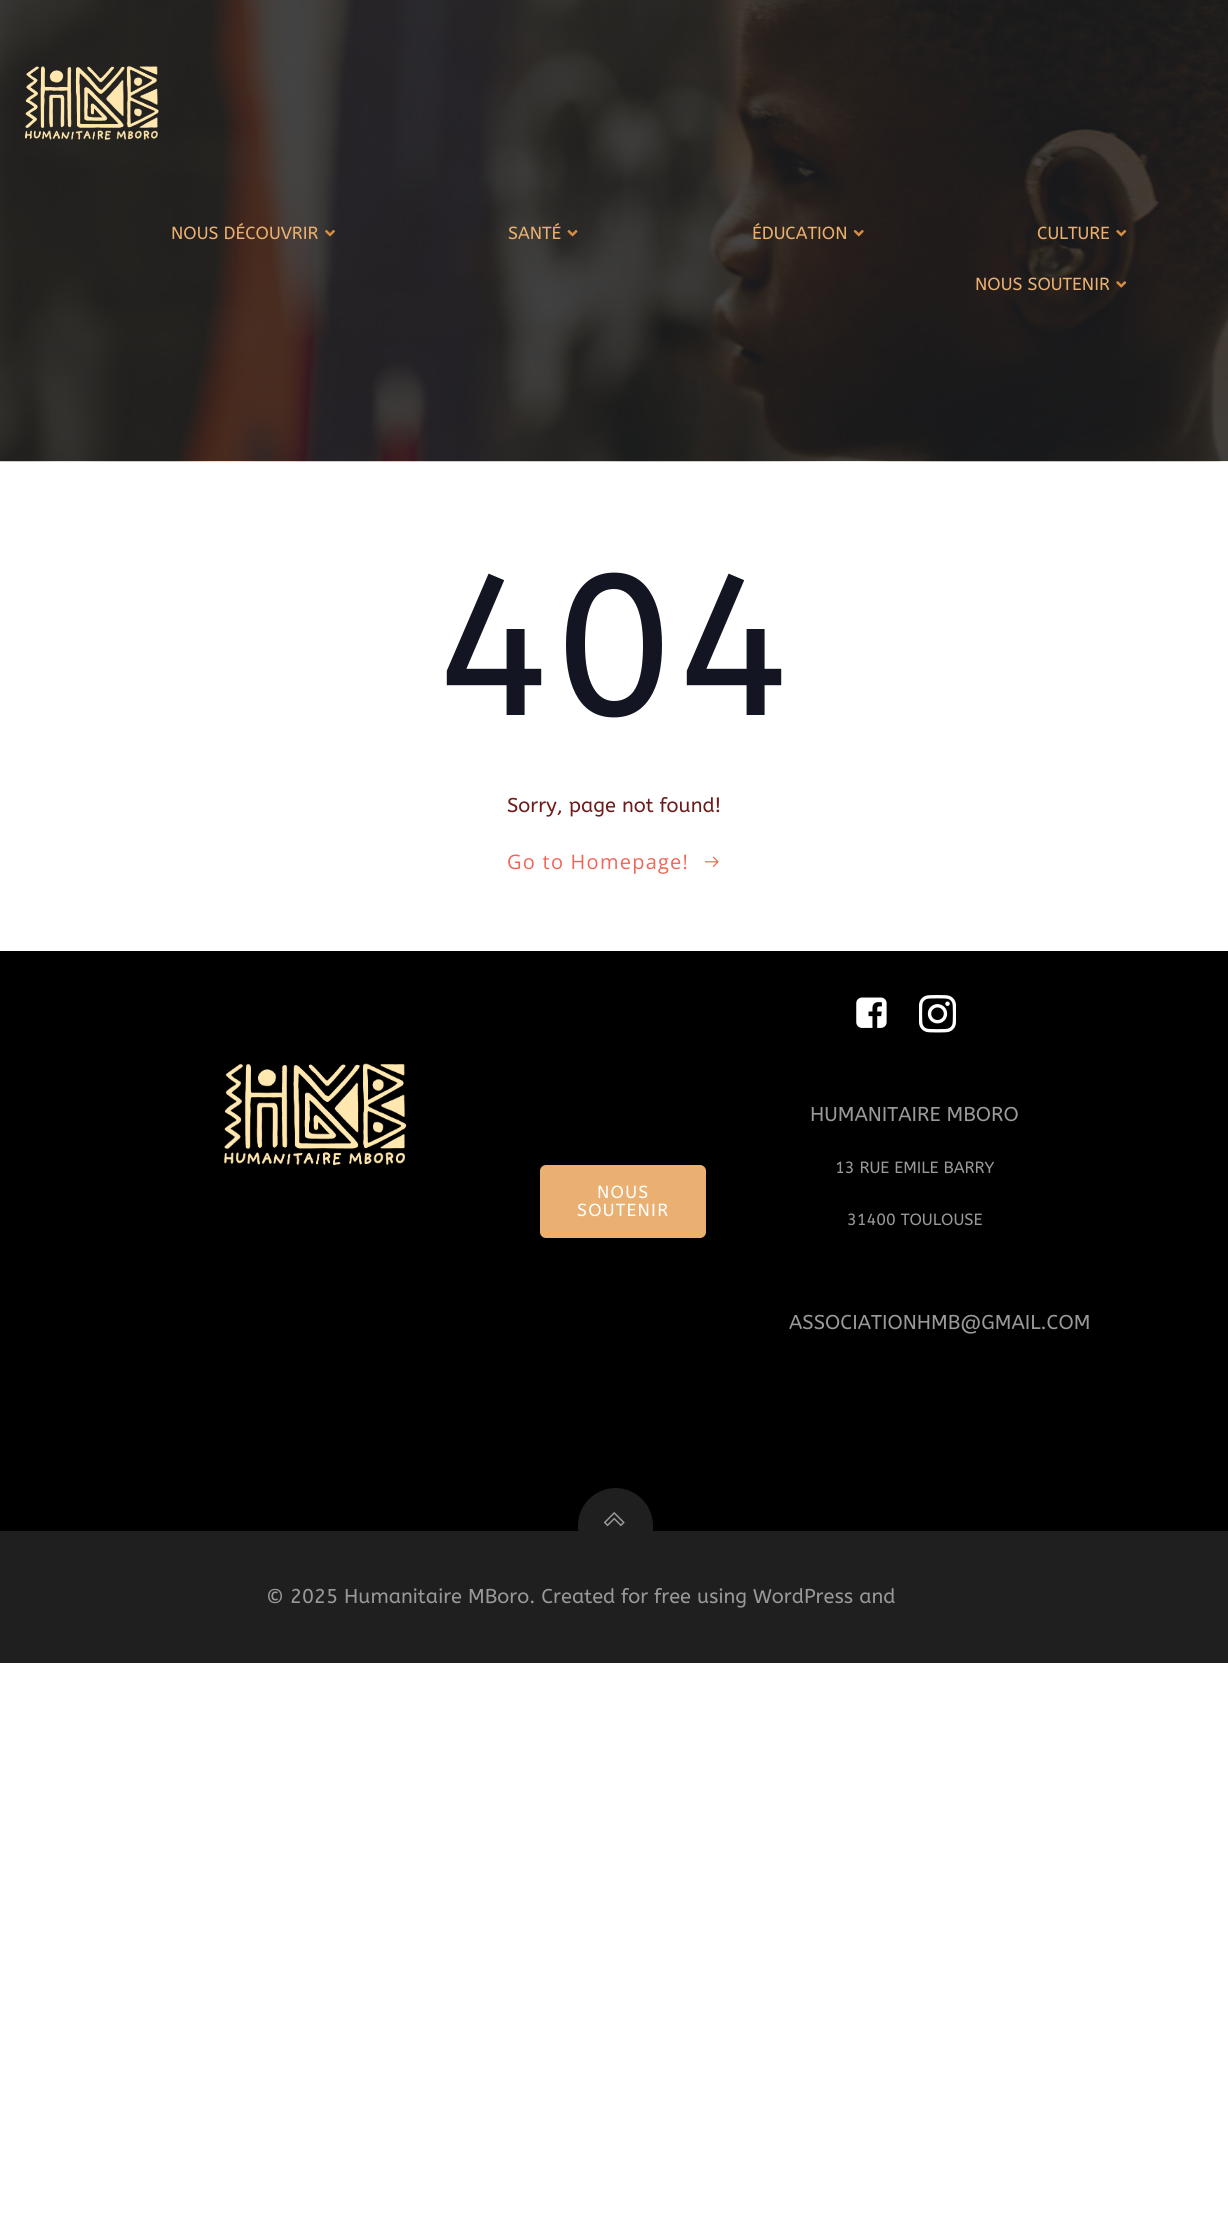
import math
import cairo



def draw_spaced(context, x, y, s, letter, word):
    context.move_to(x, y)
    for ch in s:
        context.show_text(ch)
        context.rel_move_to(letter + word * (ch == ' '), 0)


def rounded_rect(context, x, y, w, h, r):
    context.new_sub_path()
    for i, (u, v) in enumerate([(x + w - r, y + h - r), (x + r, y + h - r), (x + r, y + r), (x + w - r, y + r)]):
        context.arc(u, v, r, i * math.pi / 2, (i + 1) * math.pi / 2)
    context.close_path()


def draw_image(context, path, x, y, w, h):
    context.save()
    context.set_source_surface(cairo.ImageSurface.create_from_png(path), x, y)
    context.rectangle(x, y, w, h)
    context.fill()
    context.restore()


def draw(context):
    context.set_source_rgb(1, 1, 1)
    context.paint()
    draw_image(context, "images/1.png", 0, 0, 1228, 462)
    draw_image(context, "images/2.png", 25, 66, 134, 74)
    draw_image(context, "images/3.png", 325, 229, 10, 8)
    draw_image(context, "images/4.png", 567, 230, 11, 7)
    draw_image(context, "images/5.png", 853, 229, 11, 8)
    draw_image(context, "images/6.png", 1116, 229, 11, 8)
    draw_image(context, "images/7.png", 1116, 281, 11, 7)
    draw_image(context, "images/8.png", 704, 856, 15, 12)
    context.set_source_rgb(0, 0, 0)
    context.rectangle(0, 951, 1228, 580)
    context.fill()
    draw_image(context, "images/9.png", 224, 1063, 183, 102)
    context.set_source_rgb(234 / 255, 176 / 255, 113 / 255)
    rounded_rect(context, 540, 1165, 166, 73, 6)
    context.fill()
    draw_image(context, "images/10.png", 856, 997, 31, 31)
    draw_image(context, "images/11.png", 919, 995, 37, 38)
    context.set_source_rgb(31 / 255, 31 / 255, 31 / 255)
    context.new_path()
    context.move_to(615.5, 1488)
    context.curve_to(636, 1488, 653, 1505, 653, 1525.5)
    context.line_to(653, 1531)
    context.line_to(578, 1531)
    context.line_to(578, 1525.5)
    context.curve_to(578, 1505, 595, 1488, 615.5, 1488)
    context.close_path()
    context.fill()
    draw_image(context, "images/12.png", 603, 1512, 22, 15)
    context.rectangle(0, 1531, 1228, 132)
    context.fill()
    context.select_font_face("ABeeZee")
    context.set_font_size(17.5)
    context.set_source_rgb(234 / 255, 176 / 255, 113 / 255)
    context.move_to(171, 239)
    context.show_text("NOUS DÉCOUVRIR")
    context.move_to(508, 239)
    context.show_text("SANTÉ")
    context.move_to(752, 239)
    context.show_text("ÉDUCATION")
    context.move_to(1037, 239)
    context.show_text("CULTURE")
    context.move_to(975, 290)
    context.show_text("NOUS SOUTENIR")
    context.set_font_size(200)
    context.set_source_rgb(19 / 255, 22 / 255, 34 / 255)
    context.move_to(434, 715)
    context.show_text("404")
    context.set_font_size(20)
    context.set_source_rgb(111 / 255, 27 / 255, 27 / 255)
    context.move_to(507, 812)
    context.show_text("Sorry, page not found!")
    context.select_font_face("Open Sans")
    context.set_source_rgb(242 / 255, 101 / 255, 89 / 255)
    draw_spaced(context, 507, 869, "Go to Homepage!", 1.25, 0)
    context.select_font_face("ABeeZee")
    context.set_font_size(17.5)
    context.set_source_rgb(1, 1, 1)
    draw_spaced(context, 597, 1198, "NOUS", 1.25, 0)
    draw_spaced(context, 577, 1216, "SOUTENIR", 1.25, 0)
    context.set_font_size(20)
    context.set_source_rgb(153 / 255, 153 / 255, 153 / 255)
    context.move_to(810, 1121)
    context.show_text("HUMANITAIRE MBORO")
    context.set_font_size(16.25)
    context.move_to(835, 1173)
    context.show_text("13 RUE EMILE BARRY")
    context.move_to(847, 1225)
    context.show_text("31400 TOULOUSE")
    context.set_font_size(20)
    context.move_to(789, 1329)
    context.show_text("ASSOCIATIONHMB@GMAIL.COM")
    context.move_to(266, 1603)
    context.show_text("© 2025 Humanitaire MBoro. Created for free using WordPress and")


surface = cairo.ImageSurface(cairo.Format.RGB24, 1228, 2229)
context = cairo.Context(surface)
options = cairo.FontOptions()
options.set_hint_metrics(cairo.HintMetrics.OFF)
options.set_hint_style(cairo.HintStyle.NONE)
context.set_font_options(options)
context.set_miter_limit(4)
draw(context)
surface.write_to_png("out.png")
